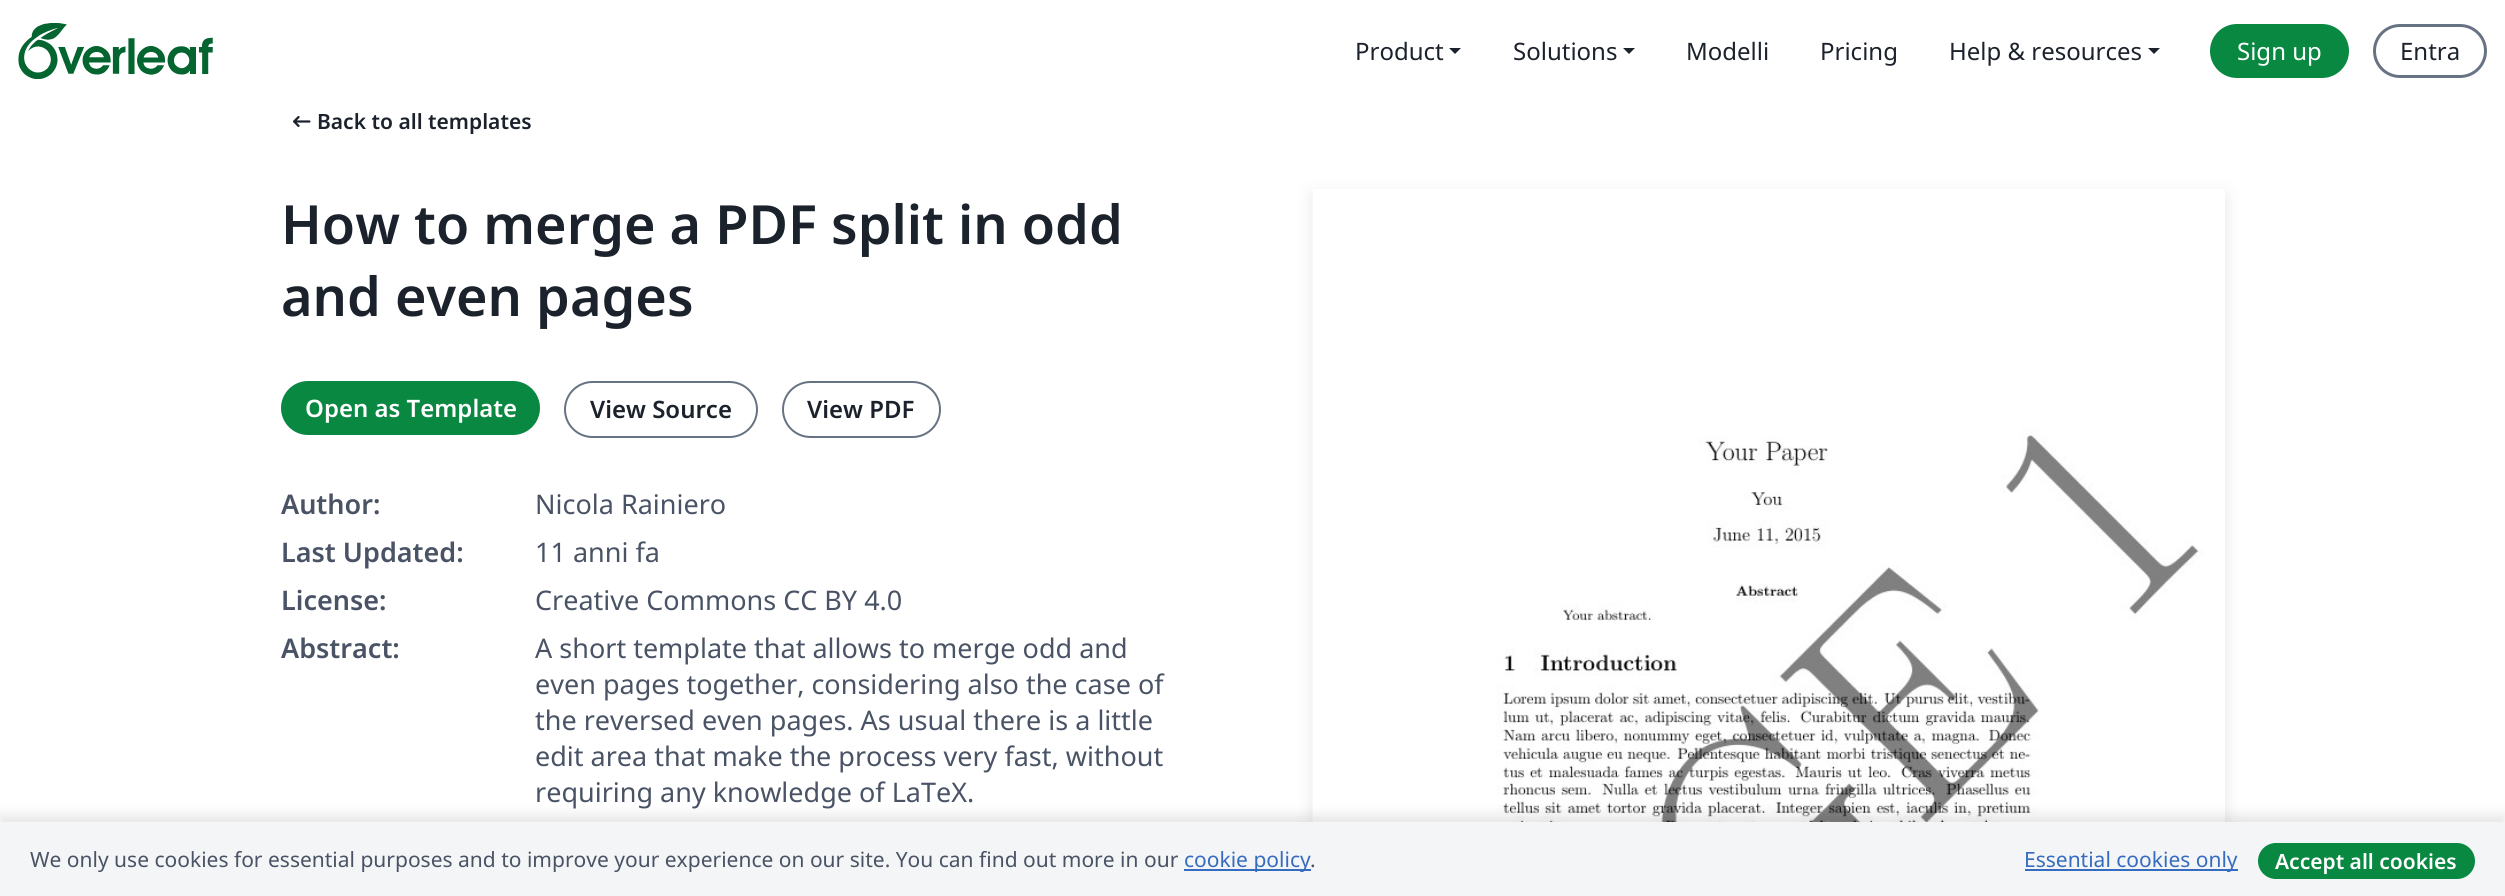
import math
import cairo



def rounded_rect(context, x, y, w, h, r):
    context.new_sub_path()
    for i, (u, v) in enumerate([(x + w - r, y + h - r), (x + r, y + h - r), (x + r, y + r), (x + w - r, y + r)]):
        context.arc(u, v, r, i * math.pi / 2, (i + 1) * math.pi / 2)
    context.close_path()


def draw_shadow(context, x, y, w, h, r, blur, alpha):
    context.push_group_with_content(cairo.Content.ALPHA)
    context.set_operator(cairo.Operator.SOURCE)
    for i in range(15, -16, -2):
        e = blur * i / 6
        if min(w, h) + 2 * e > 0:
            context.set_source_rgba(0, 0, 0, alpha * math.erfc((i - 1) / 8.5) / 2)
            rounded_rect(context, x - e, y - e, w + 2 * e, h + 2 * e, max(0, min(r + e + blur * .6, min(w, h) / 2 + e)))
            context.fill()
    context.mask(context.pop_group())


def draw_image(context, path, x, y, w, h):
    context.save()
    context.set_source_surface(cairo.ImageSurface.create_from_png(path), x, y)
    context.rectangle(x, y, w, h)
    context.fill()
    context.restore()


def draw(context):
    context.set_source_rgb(1, 1, 1)
    context.paint()
    draw_image(context, "images/1.png", 18, 23, 195, 56)
    context.set_source_rgb(27 / 255, 34 / 255, 44 / 255)
    context.new_path()
    context.move_to(1449, 48)
    context.line_to(1461, 48)
    context.line_to(1455, 54)
    context.close_path()
    context.fill()
    context.new_path()
    context.move_to(1623, 48)
    context.line_to(1635, 48)
    context.line_to(1629, 54)
    context.close_path()
    context.fill()
    context.new_path()
    context.move_to(2148, 48)
    context.line_to(2160, 48)
    context.line_to(2154, 54)
    context.close_path()
    context.fill()
    context.set_source_rgb(9 / 255, 136 / 255, 66 / 255)
    rounded_rect(context, 2211.5, 25.5, 136, 51, 25.5)
    context.fill_preserve()
    context.set_line_width(3)
    context.stroke()
    rounded_rect(context, 2374.5, 25.5, 111, 51, 25.5)
    context.set_source_rgb(103 / 255, 114 / 255, 131 / 255)
    context.stroke()
    draw_image(context, "images/2.png", 293, 116, 18, 11)
    context.set_source_rgb(9 / 255, 136 / 255, 66 / 255)
    rounded_rect(context, 281, 381, 259, 54, 27)
    context.fill()
    rounded_rect(context, 565, 382, 192, 55, 27.5)
    context.set_source_rgb(103 / 255, 114 / 255, 131 / 255)
    context.set_line_width(2)
    context.stroke()
    rounded_rect(context, 783, 382, 157, 55, 27.5)
    context.stroke()
    context.save()
    context.set_fill_rule(cairo.FillRule.EVEN_ODD)
    context.new_path()
    context.move_to(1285, 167)
    context.line_to(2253, 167)
    context.line_to(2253, 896)
    context.line_to(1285, 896)
    context.close_path()
    context.move_to(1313, 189)
    context.line_to(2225, 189)
    context.line_to(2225, 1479)
    context.line_to(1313, 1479)
    context.close_path()
    context.clip()
    context.set_source_rgb(30 / 255, 37 / 255, 48 / 255)
    draw_shadow(context, 1313, 195, 912, 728, 0, 9, 0.12)
    context.restore()
    draw_image(context, "images/3.png", 1312, 195, 913, 627)
    context.set_source_rgb(0, 0, 0)
    draw_shadow(context, 0, 815, 2505, 75, 0, 6, 0.1)
    context.set_source_rgb(244 / 255, 245 / 255, 246 / 255)
    context.rectangle(0, 822, 2505, 74)
    context.fill()
    context.set_source_rgb(54 / 255, 108 / 255, 191 / 255)
    context.rectangle(1184, 869, 127, 2)
    context.fill()
    context.rectangle(2025, 869, 213, 2)
    context.fill()
    context.set_source_rgb(9 / 255, 136 / 255, 66 / 255)
    rounded_rect(context, 2258, 843, 217, 36, 18)
    context.fill()
    context.select_font_face("Noto Sans")
    context.set_font_size(24)
    context.set_source_rgb(27 / 255, 34 / 255, 44 / 255)
    context.move_to(1355, 60)
    context.show_text("Product")
    context.move_to(1513, 60)
    context.show_text("Solutions")
    context.move_to(1686, 60)
    context.show_text("Modelli")
    context.move_to(1820, 60)
    context.show_text("Pricing")
    context.move_to(1949, 60)
    context.show_text("Help & resources")
    context.set_source_rgb(1, 1, 1)
    context.move_to(2237, 60)
    context.show_text("Sign up")
    context.set_source_rgb(27 / 255, 34 / 255, 44 / 255)
    context.move_to(2400, 60)
    context.show_text("Entra")
    context.select_font_face("Noto Sans SemiBold")
    context.set_font_size(21)
    context.move_to(317, 129)
    context.show_text("Back to all templates")
    context.set_font_size(54)
    context.move_to(281, 244)
    context.show_text("How to merge a PDF split in odd")
    context.move_to(281, 316)
    context.show_text("and even pages")
    context.set_font_size(24)
    context.set_source_rgb(1, 1, 1)
    context.move_to(305, 417)
    context.show_text("Open as Template")
    context.set_source_rgb(27 / 255, 34 / 255, 44 / 255)
    context.move_to(590, 418)
    context.show_text("View Source")
    context.move_to(807, 418)
    context.show_text("View PDF")
    context.set_font_size(27)
    context.set_source_rgb(73 / 255, 83 / 255, 101 / 255)
    context.move_to(281, 514)
    context.show_text("Author:")
    context.select_font_face("Noto Sans")
    context.move_to(535, 514)
    context.show_text("Nicola Rainiero")
    context.select_font_face("Noto Sans SemiBold")
    context.move_to(281, 562)
    context.show_text("Last Updated:")
    context.select_font_face("Noto Sans")
    context.move_to(535, 562)
    context.show_text("11 anni fa")
    context.select_font_face("Noto Sans SemiBold")
    context.move_to(281, 610)
    context.show_text("License:")
    context.select_font_face("Noto Sans")
    context.move_to(535, 610)
    context.show_text("Creative Commons CC BY 4.0")
    context.select_font_face("Noto Sans SemiBold")
    context.move_to(281, 658)
    context.show_text("Abstract:")
    context.select_font_face("Noto Sans")
    context.move_to(535, 658)
    context.show_text("A short template that allows to merge odd and")
    context.move_to(535, 694)
    context.show_text("even pages together, considering also the case of")
    context.move_to(535, 730)
    context.show_text("the reversed even pages. As usual there is a little")
    context.move_to(535, 766)
    context.show_text("edit area that make the process very fast, without")
    context.move_to(535, 802)
    context.show_text("requiring any knowledge of LaTeX.")
    context.set_font_size(21)
    context.move_to(30, 867)
    context.show_text("We only use cookies for essential purposes and to improve your experience on our site. You can find out more in our")
    context.set_source_rgb(54 / 255, 108 / 255, 191 / 255)
    context.move_to(1184, 867)
    context.show_text("cookie policy")
    context.set_source_rgb(73 / 255, 83 / 255, 101 / 255)
    context.move_to(1310, 867)
    context.show_text(".")
    context.set_source_rgb(54 / 255, 108 / 255, 191 / 255)
    context.move_to(2024, 867)
    context.show_text("Essential cookies only")
    context.select_font_face("Noto Sans SemiBold")
    context.set_source_rgb(1, 1, 1)
    context.move_to(2275, 869)
    context.show_text("Accept all cookies")


surface = cairo.ImageSurface(cairo.Format.RGB24, 2505, 896)
context = cairo.Context(surface)
options = cairo.FontOptions()
options.set_hint_metrics(cairo.HintMetrics.OFF)
options.set_hint_style(cairo.HintStyle.NONE)
context.set_font_options(options)
context.set_miter_limit(4)
draw(context)
surface.write_to_png("out.png")
